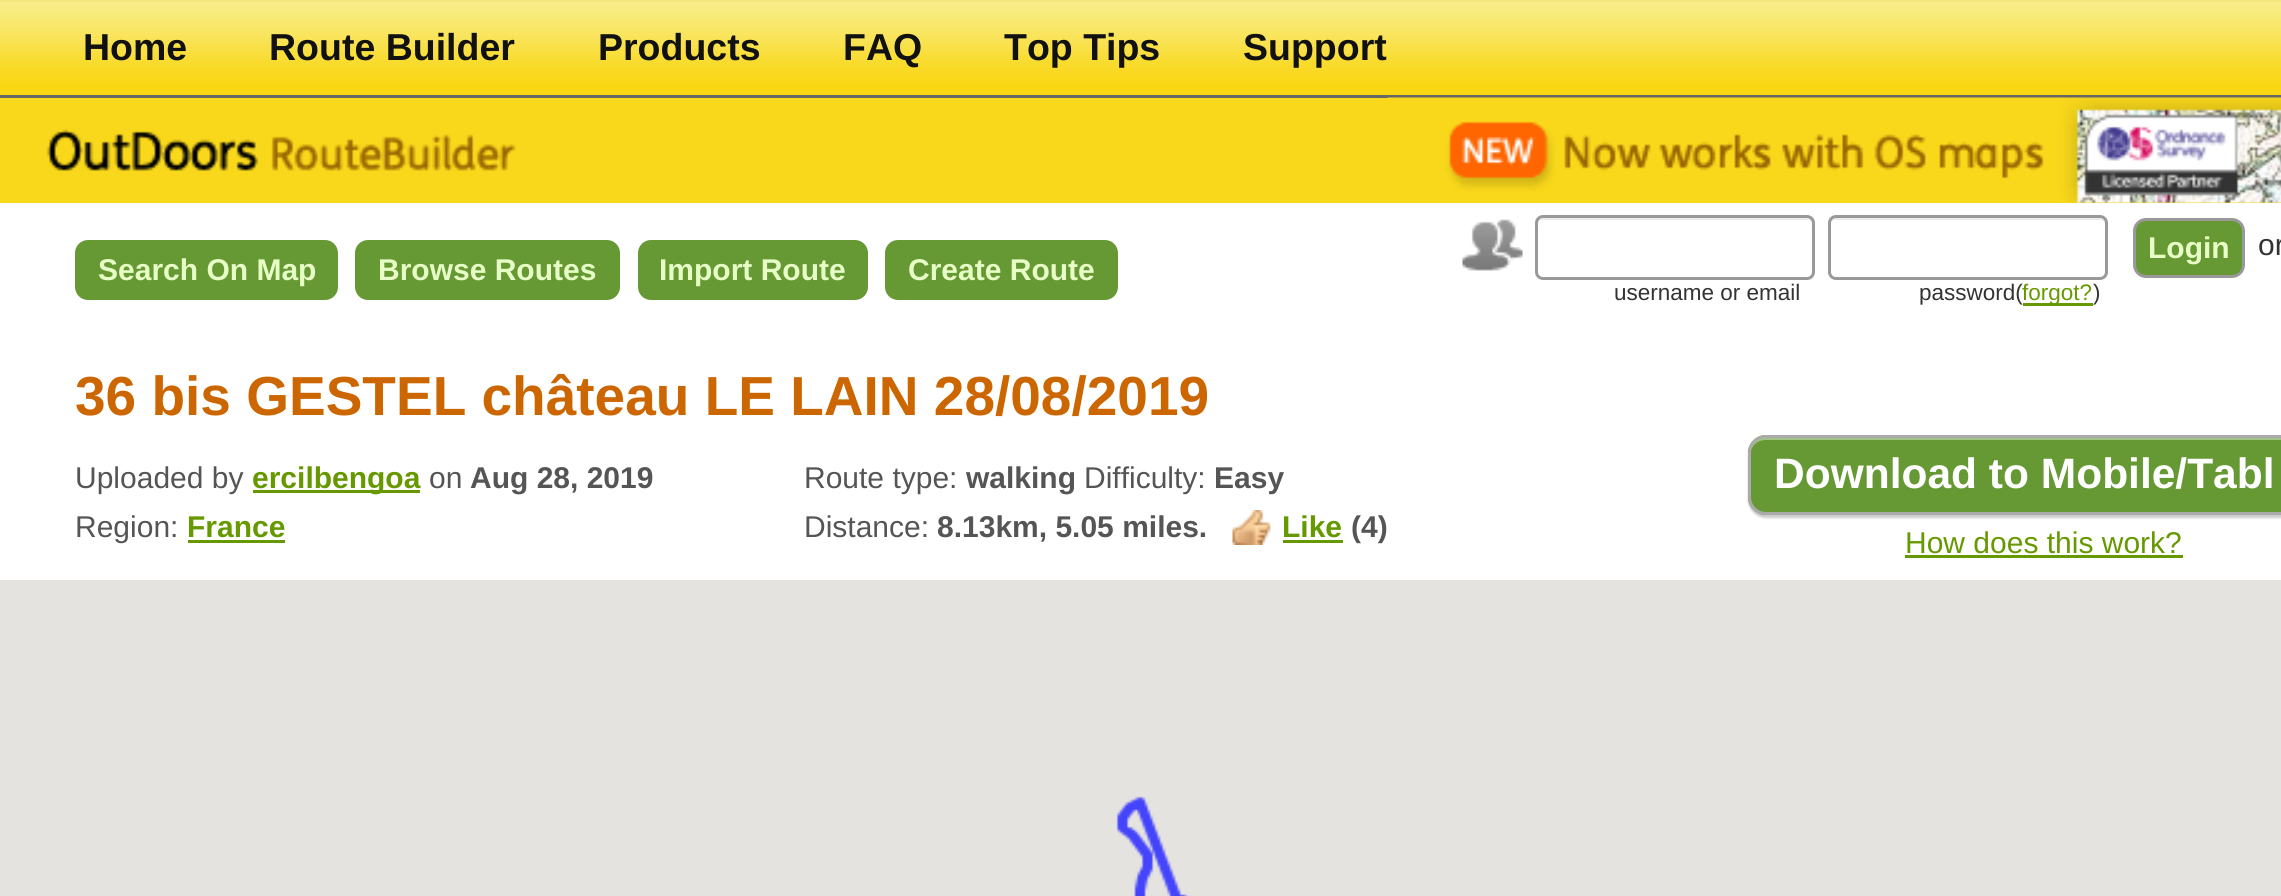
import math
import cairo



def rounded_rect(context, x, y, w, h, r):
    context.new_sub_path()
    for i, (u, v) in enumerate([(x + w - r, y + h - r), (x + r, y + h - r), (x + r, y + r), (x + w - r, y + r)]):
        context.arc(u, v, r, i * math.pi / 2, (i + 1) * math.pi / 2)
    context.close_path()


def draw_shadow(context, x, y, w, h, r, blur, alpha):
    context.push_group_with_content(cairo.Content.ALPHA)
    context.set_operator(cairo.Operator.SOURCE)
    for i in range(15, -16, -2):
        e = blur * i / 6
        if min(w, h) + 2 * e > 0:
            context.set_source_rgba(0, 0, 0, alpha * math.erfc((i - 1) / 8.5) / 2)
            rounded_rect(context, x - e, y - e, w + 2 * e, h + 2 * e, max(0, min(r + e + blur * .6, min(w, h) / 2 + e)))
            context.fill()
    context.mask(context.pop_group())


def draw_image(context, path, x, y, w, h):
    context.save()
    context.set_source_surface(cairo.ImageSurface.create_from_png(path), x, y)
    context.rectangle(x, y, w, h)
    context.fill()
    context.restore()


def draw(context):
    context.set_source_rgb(1, 1, 1)
    context.paint()
    gradient = cairo.LinearGradient(1210, 0, 1210, 95)
    gradient.add_color_stop_rgba(0, 241 / 255, 230 / 255, 124 / 255, 1)
    gradient.add_color_stop_rgba(0.03, 250 / 255, 236 / 255, 137 / 255, 1)
    gradient.add_color_stop_rgba(0.11, 248 / 255, 236 / 255, 128 / 255, 1)
    gradient.add_color_stop_rgba(0.32, 249 / 255, 230 / 255, 101 / 255, 1)
    gradient.add_color_stop_rgba(0.7, 249 / 255, 218 / 255, 40 / 255, 1)
    gradient.add_color_stop_rgba(0.92, 250 / 255, 214 / 255, 18 / 255, 1)
    gradient.add_color_stop_rgba(1, 250 / 255, 214 / 255, 18 / 255, 1)
    context.set_source(gradient)
    context.rectangle(0, 0, 2281, 95)
    context.fill()
    context.set_source_rgb(102 / 255, 102 / 255, 102 / 255)
    context.rectangle(0, 95, 2281, 3)
    context.fill()
    context.set_source_rgb(249 / 255, 216 / 255, 27 / 255)
    context.rectangle(0, 98, 2281, 105)
    context.fill()
    draw_image(context, "images/1.png", 46, 129, 470, 42)
    draw_image(context, "images/2.png", 1387, 97, 894, 106)
    context.set_source_rgb(102 / 255, 153 / 255, 51 / 255)
    rounded_rect(context, 75, 240, 263, 60, 13)
    context.fill()
    rounded_rect(context, 355, 240, 265, 60, 13)
    context.fill()
    rounded_rect(context, 638, 240, 230, 60, 13)
    context.fill()
    rounded_rect(context, 885, 240, 233, 60, 13)
    context.fill()
    draw_image(context, "images/3.png", 1462, 219, 61, 52)
    context.set_source_rgb(236 / 255, 236 / 255, 236 / 255)
    context.new_path()
    context.move_to(1542, 220)
    context.line_to(1808, 220)
    context.curve_to(1810, 220, 1812, 222, 1812, 225)
    context.line_to(1812, 276)
    context.curve_to(1813, 275, 1813, 274, 1813, 273)
    context.line_to(1813, 223)
    context.curve_to(1813, 220, 1811, 218, 1808, 218)
    context.line_to(1543, 218)
    context.curve_to(1540, 218, 1538, 220, 1538, 223)
    context.line_to(1538, 225)
    context.curve_to(1538, 222, 1540, 220, 1542, 220)
    context.close_path()
    context.fill()
    rounded_rect(context, 1536.5, 216.5, 277, 62, 6.5)
    context.set_source_rgb(153 / 255, 153 / 255, 153 / 255)
    context.set_line_width(3)
    context.stroke()
    context.set_source_rgb(236 / 255, 236 / 255, 236 / 255)
    context.new_path()
    context.move_to(1835, 220)
    context.line_to(2100, 220)
    context.curve_to(2103, 220, 2105, 222, 2105, 225)
    context.line_to(2105, 223)
    context.curve_to(2105, 220, 2103, 218, 2100, 218)
    context.line_to(1835, 218)
    context.curve_to(1832, 218, 1830, 220, 1830, 223)
    context.line_to(1830, 225)
    context.curve_to(1830, 222, 1832, 220, 1835, 220)
    context.close_path()
    context.fill()
    rounded_rect(context, 1829.5, 216.5, 277, 62, 6.5)
    context.set_source_rgb(153 / 255, 153 / 255, 153 / 255)
    context.stroke()
    context.set_source_rgb(102 / 255, 153 / 255, 51 / 255)
    rounded_rect(context, 2134.5, 219.5, 109, 57, 11.5)
    context.fill_preserve()
    context.set_source_rgb(153 / 255, 153 / 255, 153 / 255)
    context.stroke()
    context.set_source_rgb(102 / 255, 153 / 255, 0)
    context.rectangle(2023, 303, 70, 3)
    context.fill()
    context.rectangle(253, 490, 167, 3)
    context.fill()
    context.rectangle(188, 540, 97, 3)
    context.fill()
    draw_image(context, "images/4.png", 1232, 510, 39, 35)
    context.rectangle(1283, 540, 60, 3)
    context.fill()
    context.set_source_rgb(0, 0, 0)
    draw_shadow(context, 1748, 438, 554, 80, 18, 1, 0.2)
    context.set_source_rgb(102 / 255, 153 / 255, 51 / 255)
    rounded_rect(context, 1748, 435, 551, 80, 18)
    context.fill()
    context.set_source_rgb(163 / 255, 194 / 255, 133 / 255)
    context.new_path()
    context.move_to(1765, 440)
    context.line_to(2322, 440)
    context.curve_to(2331, 440, 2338, 447, 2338, 455)
    context.curve_to(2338, 446, 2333, 438, 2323, 438)
    context.line_to(1762, 438)
    context.curve_to(1754, 440, 1750, 447, 1750, 455)
    context.curve_to(1750, 447, 1757, 440, 1765, 440)
    context.close_path()
    context.fill()
    rounded_rect(context, 1749.5, 436.5, 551, 77, 16.5)
    context.set_source_rgb(170 / 255, 170 / 255, 170 / 255)
    context.stroke()
    context.set_source_rgb(102 / 255, 153 / 255, 0)
    context.rectangle(1905, 555, 278, 3)
    context.fill()
    context.set_source_rgb(229 / 255, 227 / 255, 223 / 255)
    context.rectangle(0, 580, 2281, 316)
    context.fill()
    draw_image(context, "images/5.png", 1116, 796, 73, 100)
    context.select_font_face("Liberation Sans", cairo.FontSlant.NORMAL, cairo.FontWeight.BOLD)
    context.set_font_size(37.5)
    context.set_source_rgb(17 / 255, 17 / 255, 17 / 255)
    context.move_to(83, 60)
    context.show_text("Home")
    context.move_to(269, 60)
    context.show_text("Route Builder")
    context.move_to(598, 60)
    context.show_text("Products")
    context.move_to(843, 60)
    context.show_text("FAQ")
    context.move_to(1004, 60)
    context.show_text("Top Tips")
    context.move_to(1243, 60)
    context.show_text("Support")
    context.set_font_size(30)
    context.set_source_rgb(231 / 255, 254 / 255, 198 / 255)
    context.move_to(98, 280)
    context.show_text("Search On Map")
    context.move_to(378, 280)
    context.show_text("Browse Routes")
    context.move_to(659, 280)
    context.show_text("Import Route")
    context.move_to(908, 280)
    context.show_text("Create Route")
    context.move_to(2148, 258)
    context.show_text("Login")
    context.select_font_face("Liberation Sans")
    context.set_source_rgb(51 / 255, 51 / 255, 51 / 255)
    context.move_to(2258, 255)
    context.show_text("or")
    context.set_font_size(22.5)
    context.move_to(1614, 300)
    context.show_text("username or email")
    context.move_to(1919, 300)
    context.show_text("password(")
    context.set_source_rgb(102 / 255, 153 / 255, 0)
    context.move_to(2022, 300)
    context.show_text("forgot?")
    context.set_source_rgb(51 / 255, 51 / 255, 51 / 255)
    context.move_to(2093, 300)
    context.show_text(")")
    context.select_font_face("Liberation Sans", cairo.FontSlant.NORMAL, cairo.FontWeight.BOLD)
    context.set_font_size(55)
    context.set_source_rgb(204 / 255, 102 / 255, 0)
    context.move_to(75, 415)
    context.show_text("36 bis GESTEL château LE LAIN 28/08/2019")
    context.select_font_face("Liberation Sans")
    context.set_font_size(30)
    context.set_source_rgb(85 / 255, 85 / 255, 85 / 255)
    context.move_to(75, 488)
    context.show_text("Uploaded by")
    context.select_font_face("Liberation Sans", cairo.FontSlant.NORMAL, cairo.FontWeight.BOLD)
    context.set_source_rgb(102 / 255, 153 / 255, 0)
    context.move_to(252, 488)
    context.show_text("ercilbengoa")
    context.select_font_face("Liberation Sans")
    context.set_source_rgb(85 / 255, 85 / 255, 85 / 255)
    context.move_to(429, 488)
    context.show_text("on")
    context.select_font_face("Liberation Sans", cairo.FontSlant.NORMAL, cairo.FontWeight.BOLD)
    context.move_to(470, 488)
    context.show_text("Aug 28, 2019")
    context.select_font_face("Liberation Sans")
    context.move_to(75, 537)
    context.show_text("Region:")
    context.select_font_face("Liberation Sans", cairo.FontSlant.NORMAL, cairo.FontWeight.BOLD)
    context.set_source_rgb(102 / 255, 153 / 255, 0)
    context.move_to(187, 537)
    context.show_text("France")
    context.select_font_face("Liberation Sans")
    context.set_source_rgb(85 / 255, 85 / 255, 85 / 255)
    context.move_to(804, 488)
    context.show_text("Route type:")
    context.select_font_face("Liberation Sans", cairo.FontSlant.NORMAL, cairo.FontWeight.BOLD)
    context.move_to(966, 488)
    context.show_text("walking")
    context.select_font_face("Liberation Sans")
    context.move_to(1084, 488)
    context.show_text("Difficulty:")
    context.select_font_face("Liberation Sans", cairo.FontSlant.NORMAL, cairo.FontWeight.BOLD)
    context.move_to(1214, 488)
    context.show_text("Easy")
    context.select_font_face("Liberation Sans")
    context.move_to(804, 537)
    context.show_text("Distance:")
    context.select_font_face("Liberation Sans", cairo.FontSlant.NORMAL, cairo.FontWeight.BOLD)
    context.move_to(937, 537)
    context.show_text("8.13km, 5.05 miles.")
    context.set_source_rgb(102 / 255, 153 / 255, 0)
    context.move_to(1282, 537)
    context.show_text("Like")
    context.set_source_rgb(85 / 255, 85 / 255, 85 / 255)
    context.move_to(1351, 537)
    context.show_text("(4)")
    context.set_font_size(42.5)
    context.set_source_rgb(1, 1, 1)
    context.move_to(1774, 488)
    context.show_text("Download to Mobile/Tabl")
    context.select_font_face("Liberation Sans")
    context.set_font_size(30)
    context.set_source_rgb(102 / 255, 153 / 255, 0)
    context.move_to(1905, 553)
    context.show_text("How does this work?")


surface = cairo.ImageSurface(cairo.Format.RGB24, 2281, 896)
context = cairo.Context(surface)
options = cairo.FontOptions()
options.set_hint_metrics(cairo.HintMetrics.OFF)
options.set_hint_style(cairo.HintStyle.NONE)
context.set_font_options(options)
context.set_miter_limit(4)
draw(context)
surface.write_to_png("out.png")
